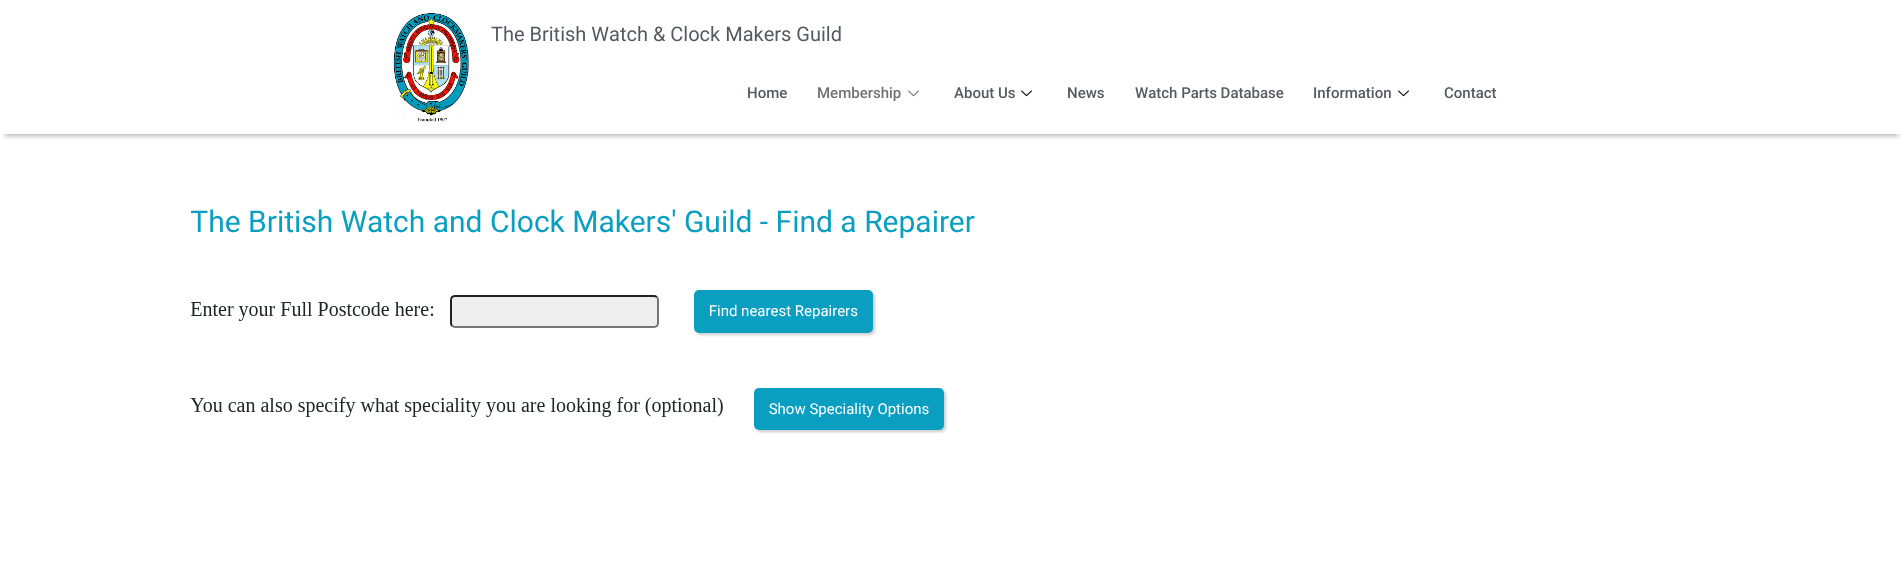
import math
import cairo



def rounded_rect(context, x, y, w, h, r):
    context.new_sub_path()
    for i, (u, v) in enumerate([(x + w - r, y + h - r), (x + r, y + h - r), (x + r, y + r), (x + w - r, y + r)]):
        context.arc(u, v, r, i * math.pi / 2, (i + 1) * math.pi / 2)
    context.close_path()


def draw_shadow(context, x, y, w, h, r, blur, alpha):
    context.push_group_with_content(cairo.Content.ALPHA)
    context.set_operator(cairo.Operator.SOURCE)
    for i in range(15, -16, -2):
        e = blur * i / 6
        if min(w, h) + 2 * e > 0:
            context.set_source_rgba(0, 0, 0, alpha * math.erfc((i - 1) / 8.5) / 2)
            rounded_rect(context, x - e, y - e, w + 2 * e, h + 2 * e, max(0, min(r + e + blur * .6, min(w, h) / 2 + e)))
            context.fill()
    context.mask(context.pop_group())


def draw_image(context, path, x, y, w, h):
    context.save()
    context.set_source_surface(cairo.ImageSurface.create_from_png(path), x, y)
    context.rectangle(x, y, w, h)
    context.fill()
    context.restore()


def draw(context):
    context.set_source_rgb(1, 1, 1)
    context.paint()
    context.save()
    context.rectangle(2, 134, 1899, 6)
    context.clip()
    context.set_source_rgb(0, 0, 0)
    draw_shadow(context, 7, 14, 1889, 120, 0, 3.5, 0.5)
    context.restore()
    draw_image(context, "images/1.png", 392, 10, 79, 113)
    draw_image(context, "images/2.png", 908, 90, 11, 7)
    draw_image(context, "images/3.png", 1021, 90, 11, 7)
    draw_image(context, "images/3.png", 1398, 90, 11, 7)
    draw_image(context, "images/4.png", 190, 209, 785, 225)
    context.select_font_face("Roboto")
    context.set_font_size(20)
    context.set_source_rgb(84 / 255, 89 / 255, 95 / 255)
    context.move_to(491, 41)
    context.show_text("The British Watch & Clock Makers Guild")
    context.select_font_face("Roboto Medium")
    context.set_font_size(15)
    context.move_to(747, 98)
    context.show_text("Home")
    context.set_source_rgb(112 / 255, 112 / 255, 112 / 255)
    context.move_to(817, 98)
    context.show_text("Membership")
    context.set_source_rgb(84 / 255, 89 / 255, 95 / 255)
    context.move_to(954, 98)
    context.show_text("About Us")
    context.move_to(1067, 98)
    context.show_text("News")
    context.move_to(1135, 98)
    context.show_text("Watch Parts Database")
    context.move_to(1313, 98)
    context.show_text("Information")
    context.move_to(1444, 98)
    context.show_text("Contact")


surface = cairo.ImageSurface(cairo.Format.RGB24, 1903, 570)
context = cairo.Context(surface)
options = cairo.FontOptions()
options.set_hint_metrics(cairo.HintMetrics.OFF)
options.set_hint_style(cairo.HintStyle.NONE)
context.set_font_options(options)
context.set_miter_limit(4)
draw(context)
surface.write_to_png("out.png")
